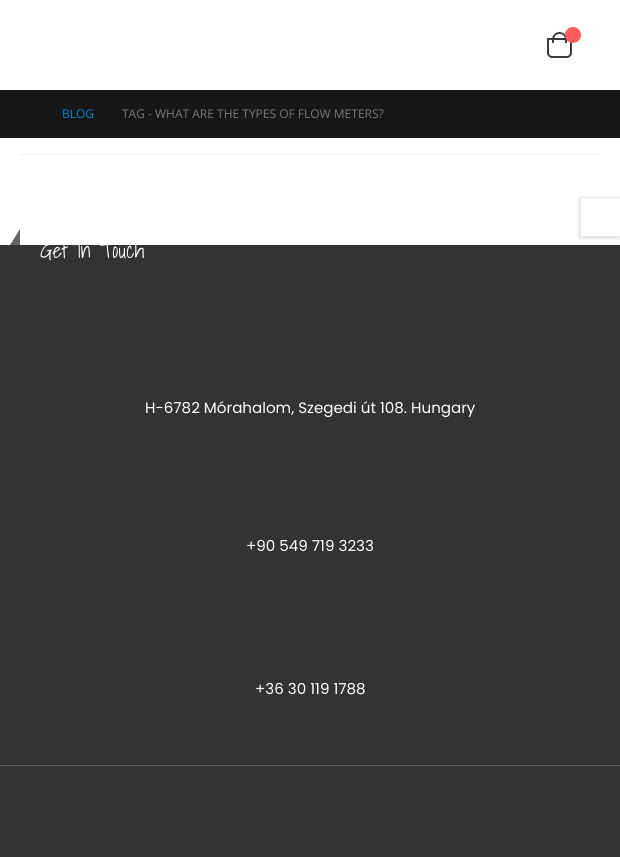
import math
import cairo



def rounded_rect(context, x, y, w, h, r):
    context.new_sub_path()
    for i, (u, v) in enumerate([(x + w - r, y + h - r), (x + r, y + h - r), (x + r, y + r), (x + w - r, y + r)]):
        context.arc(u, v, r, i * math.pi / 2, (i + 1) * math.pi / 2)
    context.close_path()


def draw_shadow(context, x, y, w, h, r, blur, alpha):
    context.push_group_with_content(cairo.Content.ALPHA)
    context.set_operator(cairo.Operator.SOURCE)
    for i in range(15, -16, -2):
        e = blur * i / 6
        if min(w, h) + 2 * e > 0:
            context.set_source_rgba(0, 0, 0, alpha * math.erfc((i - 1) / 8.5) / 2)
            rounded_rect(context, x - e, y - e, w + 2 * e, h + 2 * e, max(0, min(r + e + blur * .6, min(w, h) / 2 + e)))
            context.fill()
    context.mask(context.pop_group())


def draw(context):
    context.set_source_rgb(1, 1, 1)
    context.paint()
    context.new_path()
    context.move_to(548, 39)
    context.line_to(571, 39)
    context.line_to(571, 53)
    context.curve_to(571, 55, 569, 57, 567, 57)
    context.line_to(552, 57)
    context.curve_to(550, 57, 548, 55, 548, 53)
    context.close_path()
    context.set_source_rgb(56 / 255, 59 / 255, 62 / 255)
    context.stroke()
    context.set_fill_rule(cairo.FillRule.EVEN_ODD)
    context.new_path()
    context.move_to(559.5, 32)
    context.curve_to(563.5, 32, 567, 35.5, 567, 39.5)
    context.line_to(567, 43)
    context.line_to(552, 43)
    context.line_to(552, 39.5)
    context.curve_to(552, 35.5, 555.5, 32, 559.5, 32)
    context.close_path()
    context.move_to(559.5, 34)
    context.curve_to(565, 34, 565, 39, 565, 43)
    context.line_to(554, 43)
    context.curve_to(554, 39, 554, 34, 559.5, 34)
    context.close_path()
    context.fill()
    context.set_source_rgb(1, 91 / 255, 91 / 255)
    context.arc(573, 35, 8, 0, 2 * math.pi)
    context.fill()
    context.set_source_rgb(23 / 255, 23 / 255, 23 / 255)
    context.rectangle(0, 90, 620, 48)
    context.fill()
    context.set_source_rgb(240 / 255, 240 / 255, 240 / 255)
    context.rectangle(20, 154, 580, 1)
    context.fill()
    context.save()
    context.new_path()
    context.move_to(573, 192)
    context.line_to(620, 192)
    context.line_to(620, 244)
    context.line_to(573, 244)
    context.close_path()
    context.move_to(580, 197)
    context.line_to(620, 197)
    context.line_to(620, 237)
    context.line_to(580, 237)
    context.close_path()
    context.clip()
    context.set_source_rgb(0, 0, 0)
    draw_shadow(context, 579, 198, 40, 40, 0, 1.5, 0.15)
    context.restore()
    context.set_source_rgb(235 / 255, 235 / 255, 235 / 255)
    context.set_fill_rule(cairo.FillRule.WINDING)
    context.new_path()
    context.move_to(580, 197)
    context.line_to(620, 197)
    context.line_to(620, 198)
    context.line_to(581, 198)
    context.close_path()
    context.move_to(620, 237)
    context.line_to(580, 237)
    context.line_to(581, 236)
    context.line_to(620, 236)
    context.close_path()
    context.fill()
    context.set_source_rgba(0, 0, 0, 0.08)
    context.new_path()
    context.move_to(580, 237)
    context.line_to(580, 197)
    context.line_to(581, 198)
    context.line_to(581, 236)
    context.close_path()
    context.fill()
    context.set_source_rgb(100 / 255, 100 / 255, 100 / 255)
    context.new_path()
    context.move_to(20, 229)
    context.line_to(20, 245)
    context.line_to(10, 245)
    context.close_path()
    context.fill()
    context.set_source_rgb(51 / 255, 51 / 255, 51 / 255)
    context.rectangle(0, 245, 620, 612)
    context.fill()
    context.set_source_rgb(92 / 255, 92 / 255, 92 / 255)
    context.rectangle(0, 765, 620, 1)
    context.fill()
    context.select_font_face("Open Sans")
    context.set_font_size(12)
    context.set_source_rgb(0, 136 / 255, 204 / 255)
    context.move_to(62, 118)
    context.show_text("BLOG")
    context.set_source_rgb(119 / 255, 119 / 255, 119 / 255)
    context.move_to(122, 118)
    context.show_text("TAG - WHAT ARE THE TYPES OF FLOW METERS?")
    context.select_font_face("Shadows Into Light Light")
    context.set_font_size(21)
    context.set_source_rgb(1, 1, 1)
    context.move_to(40, 258)
    context.show_text("Get In Touch")
    context.select_font_face("Poppins")
    context.set_font_size(15.1)
    context.move_to(145, 413)
    context.show_text("H-6782 Mórahalom, Szegedi út 108. Hungary")
    context.move_to(246, 551)
    context.show_text("+90 549 719 3233")
    context.move_to(255, 694)
    context.show_text("+36 30 119 1788")


surface = cairo.ImageSurface(cairo.Format.RGB24, 620, 857)
context = cairo.Context(surface)
options = cairo.FontOptions()
options.set_hint_metrics(cairo.HintMetrics.OFF)
options.set_hint_style(cairo.HintStyle.NONE)
context.set_font_options(options)
context.set_miter_limit(4)
draw(context)
surface.write_to_png("out.png")
